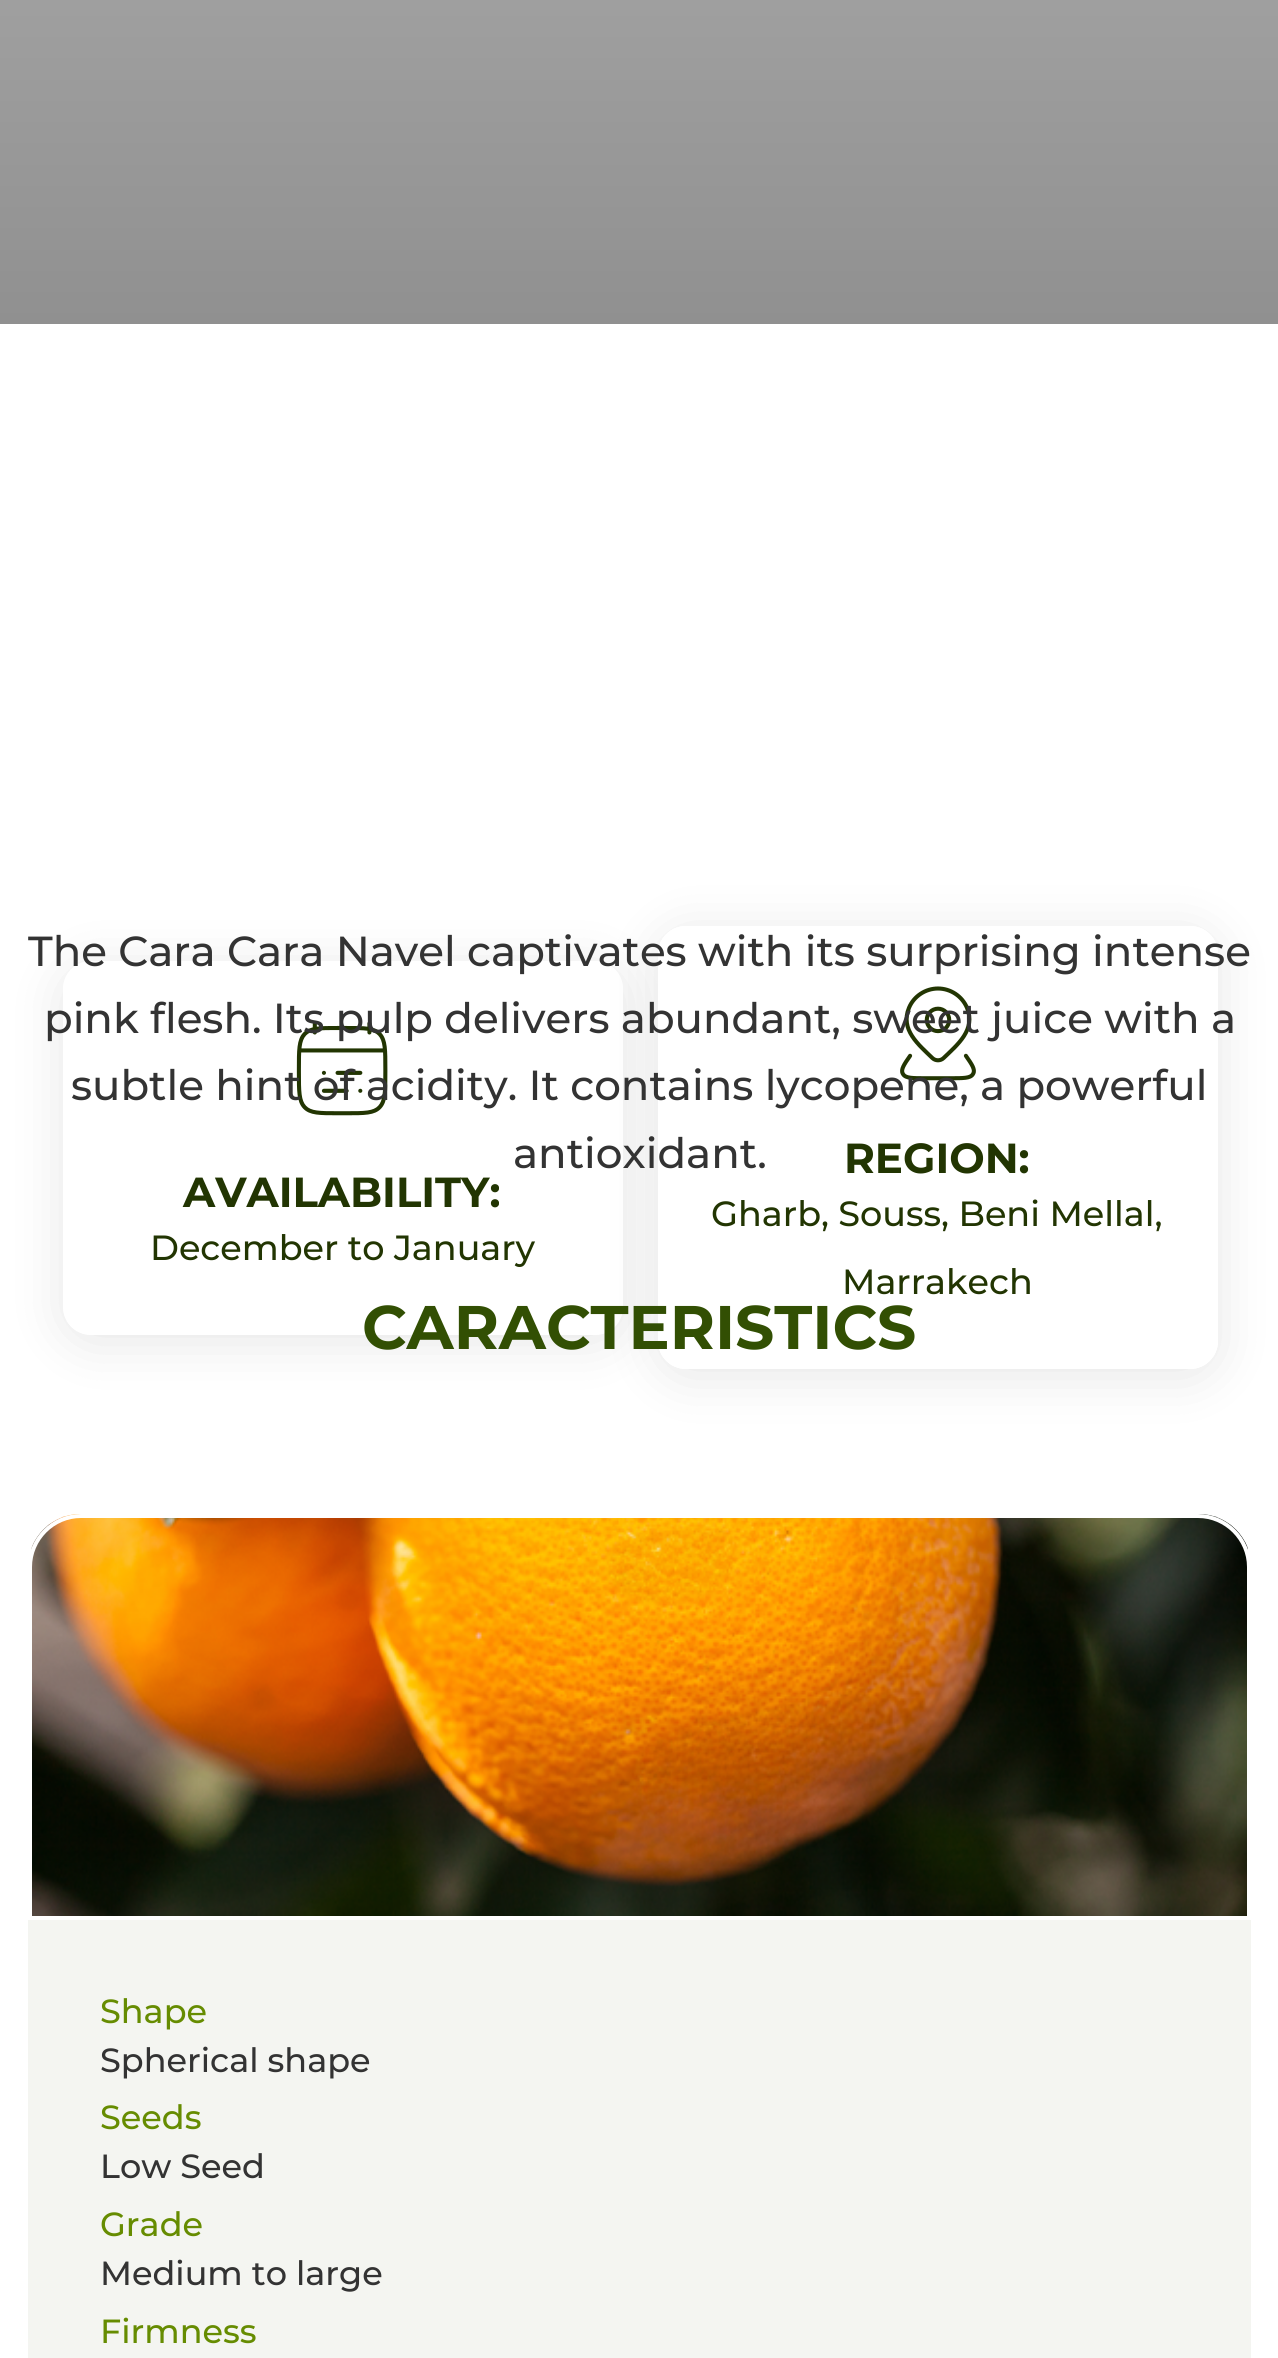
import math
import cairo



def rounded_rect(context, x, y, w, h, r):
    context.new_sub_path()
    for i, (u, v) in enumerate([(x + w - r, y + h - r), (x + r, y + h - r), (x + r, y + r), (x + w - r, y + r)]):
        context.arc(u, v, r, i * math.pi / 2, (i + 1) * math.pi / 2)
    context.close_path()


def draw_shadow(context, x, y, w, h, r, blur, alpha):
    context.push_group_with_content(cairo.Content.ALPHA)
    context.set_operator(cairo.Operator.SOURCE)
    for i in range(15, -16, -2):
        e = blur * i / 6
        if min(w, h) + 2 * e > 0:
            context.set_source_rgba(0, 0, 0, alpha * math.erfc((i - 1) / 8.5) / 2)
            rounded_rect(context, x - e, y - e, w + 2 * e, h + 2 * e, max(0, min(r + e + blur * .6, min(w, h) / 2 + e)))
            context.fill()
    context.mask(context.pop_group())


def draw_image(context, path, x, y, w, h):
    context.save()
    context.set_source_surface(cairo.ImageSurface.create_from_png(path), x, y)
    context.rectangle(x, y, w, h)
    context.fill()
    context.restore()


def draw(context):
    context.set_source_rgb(1, 1, 1)
    context.paint()
    draw_image(context, "images/1.png", 31, 1514, 1217, 402)
    context.new_path()
    context.move_to(81, 1516)
    context.line_to(1198, 1516)
    context.curve_to(1226, 1516, 1249, 1539, 1249, 1567)
    context.line_to(1249, 1918)
    context.line_to(30, 1918)
    context.line_to(30, 1567)
    context.curve_to(30, 1539, 53, 1516, 81, 1516)
    context.close_path()
    context.set_source_rgb(1, 1, 1)
    context.set_line_width(4)
    context.stroke()
    context.set_source_rgb(244 / 255, 245 / 255, 241 / 255)
    context.rectangle(28, 1920, 1223, 438)
    context.fill()
    gradient = cairo.LinearGradient(640, -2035, 640, 324)
    gradient.add_color_stop_rgba(0, 1, 1, 1, 1)
    gradient.add_color_stop_rgba(1, 144 / 255, 144 / 255, 144 / 255, 1)
    context.set_source(gradient)
    context.rectangle(0, 0, 1278, 324)
    context.fill()
    context.save()
    context.set_fill_rule(cairo.FillRule.EVEN_ODD)
    context.new_path()
    context.move_to(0, 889)
    context.line_to(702, 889)
    context.line_to(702, 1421)
    context.line_to(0, 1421)
    context.close_path()
    context.move_to(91, 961)
    context.line_to(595, 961)
    context.curve_to(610.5, 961, 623, 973.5, 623, 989)
    context.line_to(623, 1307)
    context.curve_to(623, 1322.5, 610.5, 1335, 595, 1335)
    context.line_to(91, 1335)
    context.curve_to(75.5, 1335, 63, 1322.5, 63, 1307)
    context.line_to(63, 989)
    context.curve_to(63, 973.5, 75.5, 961, 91, 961)
    context.close_path()
    context.clip()
    context.set_source_rgb(0, 0, 0)
    draw_shadow(context, 63, 968, 560, 374, 28, 26, 0.1)
    context.restore()
    draw_image(context, "images/2.png", 296, 1021, 92, 95)
    context.save()
    context.set_fill_rule(cairo.FillRule.EVEN_ODD)
    context.new_path()
    context.move_to(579, 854)
    context.line_to(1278, 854)
    context.line_to(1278, 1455)
    context.line_to(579, 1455)
    context.close_path()
    context.move_to(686, 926)
    context.line_to(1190, 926)
    context.curve_to(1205.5, 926, 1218, 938.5, 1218, 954)
    context.line_to(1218, 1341)
    context.curve_to(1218, 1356.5, 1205.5, 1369, 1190, 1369)
    context.line_to(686, 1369)
    context.curve_to(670.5, 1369, 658, 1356.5, 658, 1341)
    context.line_to(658, 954)
    context.curve_to(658, 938.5, 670.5, 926, 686, 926)
    context.close_path()
    context.clip()
    context.set_source_rgb(0, 0, 0)
    draw_shadow(context, 658, 933, 560, 443, 28, 26, 0.1)
    context.restore()
    context.set_source_rgba(1, 1, 1, 0.77)
    rounded_rect(context, 660, 928, 556, 439, 26)
    context.fill_preserve()
    context.set_source_rgb(1, 1, 1)
    context.stroke()
    draw_image(context, "images/3.png", 900, 986, 76, 95)
    context.select_font_face("Montserrat Medium")
    context.set_font_size(42)
    context.set_source_rgb(51 / 255, 51 / 255, 51 / 255)
    context.move_to(28, 966)
    context.show_text("The Cara Cara Navel captivates with its surprising intense")
    context.move_to(44, 1033)
    context.show_text("pink flesh. Its pulp delivers abundant, sweet juice with a")
    context.move_to(71, 1100)
    context.show_text("subtle hint of acidity. It contains lycopene, a powerful")
    context.move_to(513, 1168)
    context.show_text("antioxidant.")
    context.select_font_face("Montserrat", cairo.FontSlant.NORMAL, cairo.FontWeight.BOLD)
    context.set_font_size(61.5)
    context.set_source_rgb(50 / 255, 79 / 255, 3 / 255)
    context.move_to(362, 1349)
    context.show_text("CARACTERISTICS")
    context.select_font_face("Montserrat Medium")
    context.set_font_size(33.5)
    context.set_source_rgb(102 / 255, 140 / 255, 1 / 255)
    context.move_to(100, 2023)
    context.show_text("Shape")
    context.set_source_rgb(51 / 255, 51 / 255, 51 / 255)
    context.move_to(100, 2072)
    context.show_text("Spherical shape")
    context.set_source_rgb(102 / 255, 140 / 255, 1 / 255)
    context.move_to(100, 2129)
    context.show_text("Seeds")
    context.set_source_rgb(51 / 255, 51 / 255, 51 / 255)
    context.move_to(100, 2178)
    context.show_text("Low Seed")
    context.set_source_rgb(102 / 255, 140 / 255, 1 / 255)
    context.move_to(100, 2236)
    context.show_text("Grade")
    context.set_source_rgb(51 / 255, 51 / 255, 51 / 255)
    context.move_to(100, 2285)
    context.show_text("Medium to large")
    context.set_source_rgb(102 / 255, 140 / 255, 1 / 255)
    context.move_to(100, 2343)
    context.show_text("Firmness")
    context.select_font_face("Montserrat", cairo.FontSlant.NORMAL, cairo.FontWeight.BOLD)
    context.set_font_size(42)
    context.set_source_rgb(34 / 255, 53 / 255, 2 / 255)
    context.move_to(183, 1207)
    context.show_text("AVAILABILITY:")
    context.select_font_face("Montserrat Medium")
    context.set_font_size(35)
    context.move_to(150, 1260)
    context.show_text("December to January")
    context.select_font_face("Montserrat", cairo.FontSlant.NORMAL, cairo.FontWeight.BOLD)
    context.set_font_size(42)
    context.move_to(844, 1173)
    context.show_text("REGION:")
    context.select_font_face("Montserrat Medium")
    context.set_font_size(35)
    context.move_to(711, 1226)
    context.show_text("Gharb, Souss, Beni Mellal,")
    context.move_to(842, 1294)
    context.show_text("Marrakech")


surface = cairo.ImageSurface(cairo.Format.RGB24, 1278, 2358)
context = cairo.Context(surface)
options = cairo.FontOptions()
options.set_hint_metrics(cairo.HintMetrics.OFF)
options.set_hint_style(cairo.HintStyle.NONE)
context.set_font_options(options)
context.set_miter_limit(4)
draw(context)
surface.write_to_png("out.png")
